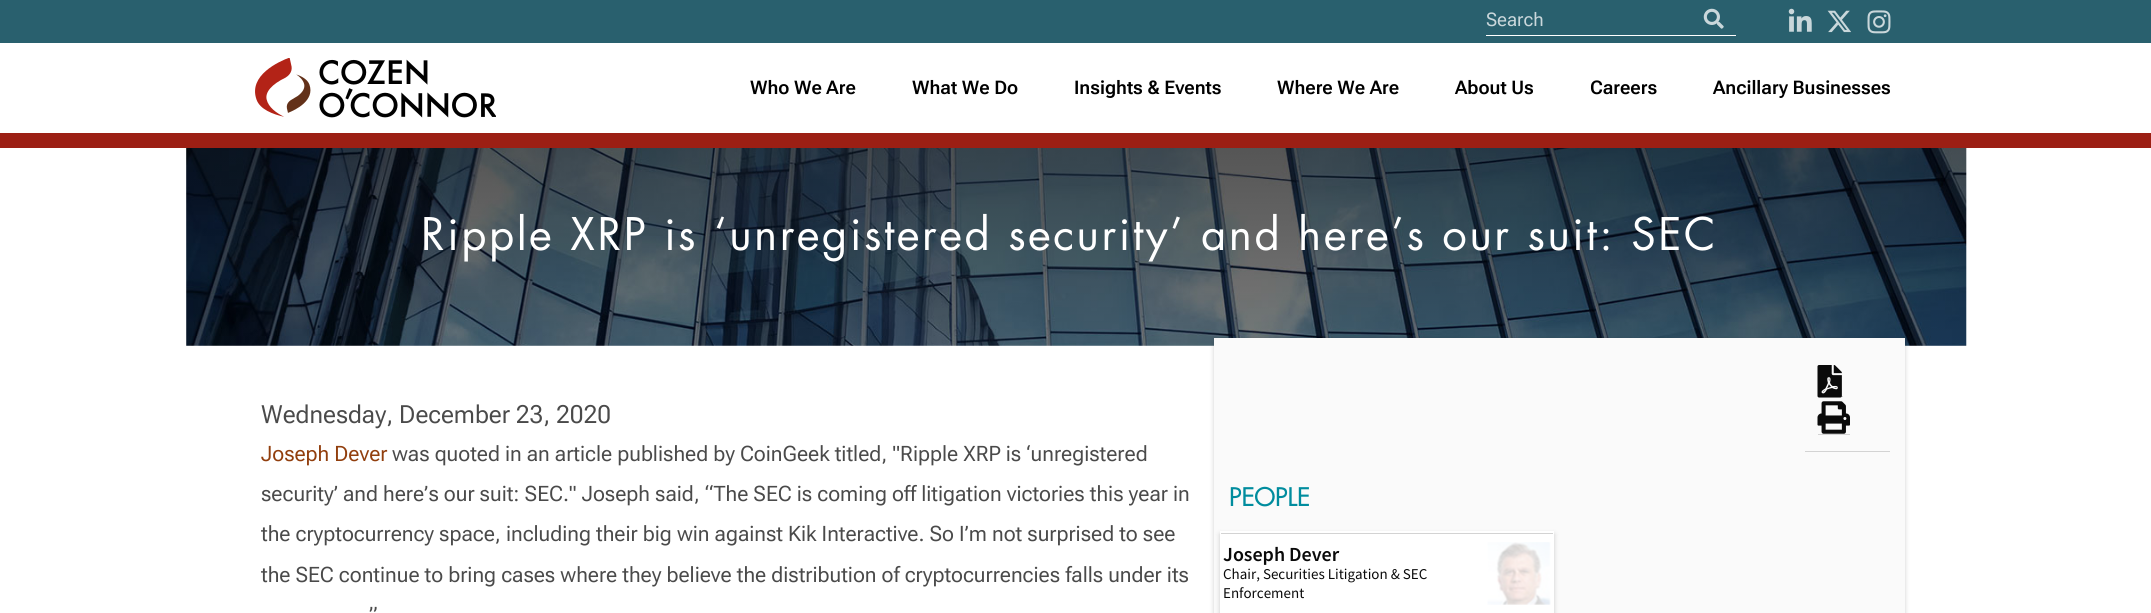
import math
import cairo



def draw_spaced(context, x, y, s, letter, word):
    context.move_to(x, y)
    for ch in s:
        context.show_text(ch)
        context.rel_move_to(letter + word * (ch == ' '), 0)


def rounded_rect(context, x, y, w, h, r):
    context.new_sub_path()
    for i, (u, v) in enumerate([(x + w - r, y + h - r), (x + r, y + h - r), (x + r, y + r), (x + w - r, y + r)]):
        context.arc(u, v, r, i * math.pi / 2, (i + 1) * math.pi / 2)
    context.close_path()


def draw_shadow(context, x, y, w, h, r, blur, alpha):
    context.push_group_with_content(cairo.Content.ALPHA)
    context.set_operator(cairo.Operator.SOURCE)
    for i in range(15, -16, -2):
        e = blur * i / 6
        if min(w, h) + 2 * e > 0:
            context.set_source_rgba(0, 0, 0, alpha * math.erfc((i - 1) / 8.5) / 2)
            rounded_rect(context, x - e, y - e, w + 2 * e, h + 2 * e, max(0, min(r + e + blur * .6, min(w, h) / 2 + e)))
            context.fill()
    context.mask(context.pop_group())


def draw_image(context, path, x, y, w, h):
    context.save()
    context.set_source_surface(cairo.ImageSurface.create_from_png(path), x, y)
    context.rectangle(x, y, w, h)
    context.fill()
    context.restore()


def draw(context):
    context.set_source_rgb(1, 1, 1)
    context.paint()
    context.set_source_rgb(156 / 255, 31 / 255, 20 / 255)
    context.rectangle(0, 133, 2151, 15)
    context.fill()
    context.set_source_rgb(41 / 255, 96 / 255, 110 / 255)
    context.rectangle(0, 0, 2151, 43)
    context.fill()
    context.set_source_rgb(1, 1, 1)
    context.rectangle(1486, 35, 250, 1)
    context.fill()
    draw_image(context, "images/1.png", 1703, 8, 21, 21)
    draw_image(context, "images/2.png", 1788, 8, 24, 24)
    draw_image(context, "images/3.png", 1827, 10, 24, 23)
    draw_image(context, "images/4.png", 1867, 10, 24, 24)
    draw_image(context, "images/5.png", 255, 58, 241, 60)
    draw_image(context, "images/6.png", 186, 148, 1781, 198)
    context.set_source_rgb(0, 0, 0)
    draw_shadow(context, 1214, 340, 691, 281, 0, 2.5, 0.18)
    context.set_source_rgb(250 / 255, 250 / 255, 250 / 255)
    context.rectangle(1214, 338, 691, 275)
    context.fill()
    context.set_source_rgb(211 / 255, 211 / 255, 211 / 255)
    context.rectangle(1841, 396, 2, 1)
    context.fill()
    draw_image(context, "images/7.png", 1817, 365, 25, 33)
    context.rectangle(1818, 434, 32, 1)
    context.fill()
    draw_image(context, "images/8.png", 1817, 401, 33, 33)
    context.rectangle(1805, 451, 85, 1)
    context.fill()
    context.set_source_rgb(0, 0, 0)
    draw_shadow(context, 1220, 534, 334, 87, 0, 2.5, 0.18)
    context.set_source_rgb(1, 1, 1)
    context.rectangle(1220, 531, 334, 82)
    context.fill()
    context.set_source_rgb(211 / 255, 211 / 255, 211 / 255)
    context.rectangle(1221, 533, 332, 1)
    context.fill()
    draw_image(context, "images/9.png", 1487, 542, 64, 63)
    context.select_font_face("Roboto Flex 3")
    context.set_font_size(18.75)
    context.set_source_rgb(202 / 255, 215 / 255, 219 / 255)
    context.move_to(1486, 26)
    context.show_text("Search")
    context.select_font_face("Roboto Flex SemiBold")
    context.set_source_rgb(0, 0, 0)
    context.move_to(750, 94)
    context.show_text("Who We Are")
    context.move_to(912, 94)
    context.show_text("What We Do")
    context.move_to(1074, 94)
    context.show_text("Insights & Events")
    context.move_to(1277, 94)
    context.show_text("Where We Are")
    context.move_to(1455, 94)
    context.show_text("About Us")
    context.move_to(1590, 94)
    context.show_text("Careers")
    context.move_to(1713, 94)
    context.show_text("Ancillary Businesses")
    context.select_font_face("Futura")
    context.set_font_size(43.75)
    context.set_source_rgb(1, 1, 1)
    draw_spaced(context, 421, 250, "Ripple XRP is ‘unregistered security’ and here’s our suit: SEC", 2.5, 0)
    context.select_font_face("Roboto Flex")
    context.set_font_size(25)
    context.set_source_rgb(74 / 255, 74 / 255, 74 / 255)
    context.move_to(261, 423)
    context.show_text("Wednesday, December 23, 2020")
    context.select_font_face("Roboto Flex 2")
    context.set_font_size(21.25)
    context.set_source_rgb(145 / 255, 62 / 255, 13 / 255)
    context.move_to(261, 461)
    context.show_text("Joseph Dever")
    context.set_source_rgb(74 / 255, 74 / 255, 74 / 255)
    context.move_to(392, 461)
    context.show_text("was quoted in an article published by CoinGeek titled, \"Ripple XRP is ‘unregistered")
    context.move_to(261, 501)
    context.show_text("security’ and here’s our suit: SEC.\" Joseph said, “The SEC is coming off litigation victories this year in")
    context.move_to(261, 541)
    context.show_text("the cryptocurrency space, including their big win against Kik Interactive. So I’m not surprised to see")
    context.move_to(261, 582)
    context.show_text("the SEC continue to bring cases where they believe the distribution of cryptocurrencies falls under its")
    context.move_to(369, 622)
    context.show_text("”")
    context.select_font_face("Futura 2")
    context.set_font_size(25)
    context.set_source_rgb(0, 140 / 255, 158 / 255)
    context.move_to(1229, 506)
    context.show_text("PEOPLE")
    context.select_font_face("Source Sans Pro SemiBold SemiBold")
    context.set_font_size(20)
    context.set_source_rgb(10 / 255, 10 / 255, 10 / 255)
    context.move_to(1223, 561)
    context.show_text("Joseph Dever")
    context.select_font_face("Source Sans Pro")
    context.set_font_size(15)
    context.move_to(1223, 579)
    context.show_text("Chair, Securities Litigation & SEC")
    context.move_to(1223, 598)
    context.show_text("Enforcement")


surface = cairo.ImageSurface(cairo.Format.RGB24, 2151, 613)
context = cairo.Context(surface)
options = cairo.FontOptions()
options.set_hint_metrics(cairo.HintMetrics.OFF)
options.set_hint_style(cairo.HintStyle.NONE)
context.set_font_options(options)
context.set_miter_limit(4)
draw(context)
surface.write_to_png("out.png")
